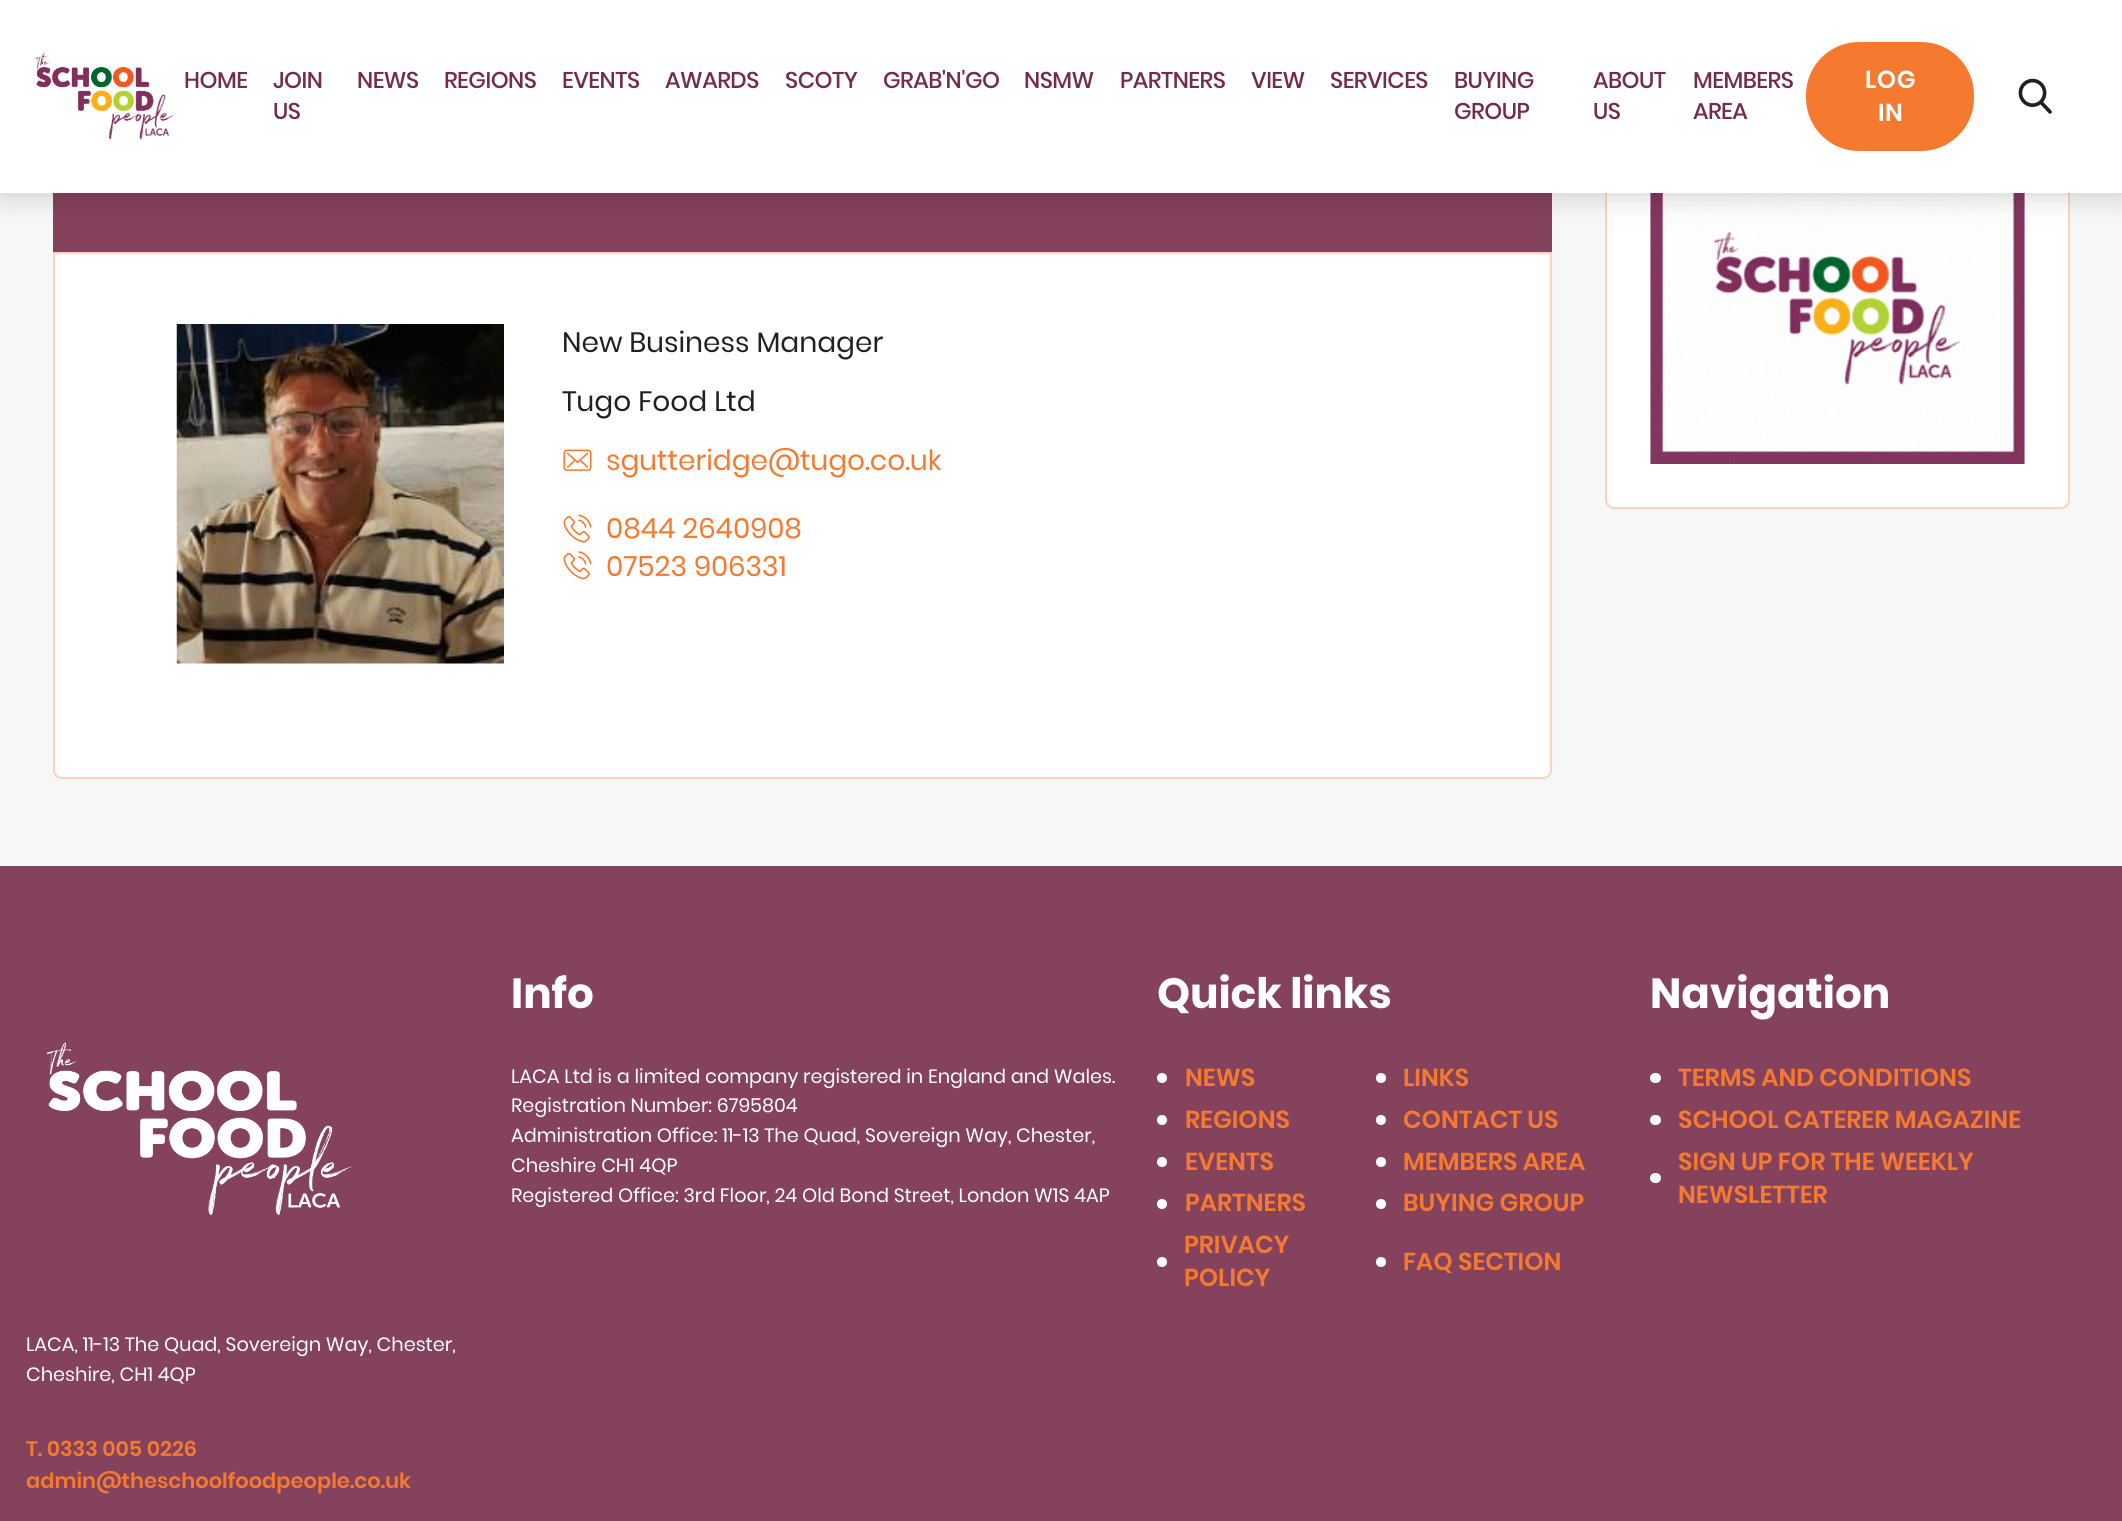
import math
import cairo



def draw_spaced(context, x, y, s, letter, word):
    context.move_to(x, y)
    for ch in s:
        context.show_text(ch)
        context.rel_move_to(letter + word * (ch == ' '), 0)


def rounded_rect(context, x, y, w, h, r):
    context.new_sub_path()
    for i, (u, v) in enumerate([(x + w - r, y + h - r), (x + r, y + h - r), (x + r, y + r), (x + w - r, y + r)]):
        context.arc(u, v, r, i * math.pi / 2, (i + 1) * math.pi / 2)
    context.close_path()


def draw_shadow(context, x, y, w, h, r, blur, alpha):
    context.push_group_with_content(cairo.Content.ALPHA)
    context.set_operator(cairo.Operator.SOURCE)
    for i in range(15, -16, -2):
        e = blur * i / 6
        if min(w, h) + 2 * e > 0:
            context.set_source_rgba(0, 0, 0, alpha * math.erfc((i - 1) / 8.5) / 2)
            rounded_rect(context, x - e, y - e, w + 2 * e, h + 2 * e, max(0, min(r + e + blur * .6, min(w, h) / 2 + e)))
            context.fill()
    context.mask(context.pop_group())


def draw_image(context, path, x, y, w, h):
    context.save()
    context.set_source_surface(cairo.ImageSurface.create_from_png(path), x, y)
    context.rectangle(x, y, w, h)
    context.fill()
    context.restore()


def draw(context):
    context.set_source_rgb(247 / 255, 247 / 255, 247 / 255)
    context.paint()
    context.set_source_rgb(132 / 255, 66 / 255, 93 / 255)
    context.rectangle(53, 193, 1499, 59)
    context.fill()
    context.set_source_rgb(1, 1, 1)
    rounded_rect(context, 1605, 107, 465, 402, 9)
    context.fill()
    rounded_rect(context, 1606, 108, 463, 400, 8)
    context.set_source_rgba(245 / 255, 122 / 255, 48 / 255, 0.33)
    context.stroke()
    draw_image(context, "images/7.png", 1650, 193, 375, 271)
    context.set_source_rgb(0, 0, 0)
    draw_shadow(context, 2, 2, 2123, 192, 0, 15, 0.2)
    context.set_source_rgb(1, 1, 1)
    context.rectangle(0, 0, 2122, 193)
    context.fill()
    draw_image(context, "images/1.png", 35, 53, 140, 87)
    context.set_source_rgb(245 / 255, 122 / 255, 48 / 255)
    rounded_rect(context, 1808, 44, 164, 105, 51)
    context.fill_preserve()
    context.set_line_width(4)
    context.stroke()
    draw_image(context, "images/2.png", 2018, 78, 34, 36)
    context.set_source_rgb(1, 1, 1)
    context.new_path()
    context.move_to(53, 252)
    context.line_to(1552, 252)
    context.line_to(1552, 770)
    context.curve_to(1552, 775, 1548, 779, 1543, 779)
    context.line_to(62, 779)
    context.curve_to(57, 779, 53, 775, 53, 770)
    context.close_path()
    context.fill()
    context.new_path()
    context.move_to(54, 253)
    context.line_to(1551, 253)
    context.line_to(1551, 770)
    context.curve_to(1551, 774.5, 1547.5, 778, 1543, 778)
    context.line_to(62, 778)
    context.curve_to(57.5, 778, 54, 774.5, 54, 770)
    context.close_path()
    context.set_source_rgba(245 / 255, 122 / 255, 48 / 255, 0.33)
    context.set_line_width(2)
    context.stroke()
    draw_image(context, "images/3.png", 176, 324, 328, 340)
    draw_image(context, "images/4.png", 563, 449, 29, 22)
    draw_image(context, "images/5.png", 563, 514, 29, 29)
    draw_image(context, "images/6.png", 563, 551, 29, 29)
    context.set_source_rgb(132 / 255, 66 / 255, 93 / 255)
    context.rectangle(0, 866, 2122, 655)
    context.fill()
    context.set_source_rgb(1, 1, 1)
    context.arc(1162, 1078, 5, 0, 2 * math.pi)
    context.fill()
    context.arc(1381, 1078, 5, 0, 2 * math.pi)
    context.fill()
    context.arc(1162, 1120, 5, 0, 2 * math.pi)
    context.fill()
    context.arc(1381, 1120, 5, 0, 2 * math.pi)
    context.fill()
    context.arc(1162, 1162, 5, 0, 2 * math.pi)
    context.fill()
    context.arc(1381, 1162, 5, 0, 2 * math.pi)
    context.fill()
    context.arc(1162, 1204, 5, 0, 2 * math.pi)
    context.fill()
    context.arc(1381, 1204, 5, 0, 2 * math.pi)
    context.fill()
    context.arc(1162, 1262, 5, 0, 2 * math.pi)
    context.fill()
    context.arc(1381, 1262, 5, 0, 2 * math.pi)
    context.fill()
    rounded_rect(context, 1650, 1073, 11, 10, 5)
    context.fill()
    rounded_rect(context, 1650, 1115, 11, 10, 5)
    context.fill()
    rounded_rect(context, 1650, 1173, 11, 10, 5)
    context.fill()
    draw_image(context, "images/8.png", 47, 1042, 305, 173)
    context.select_font_face("Poppins Medium")
    context.set_font_size(22.75)
    context.set_source_rgb(115 / 255, 44 / 255, 73 / 255)
    draw_spaced(context, 184, 88, "HOME", -0.5, 0)
    draw_spaced(context, 273, 88, "JOIN", -0.5, 0)
    draw_spaced(context, 273, 119, "US", -0.5, 0)
    draw_spaced(context, 357, 88, "NEWS", -0.5, 0)
    draw_spaced(context, 444, 88, "REGIONS", -0.5, 0)
    draw_spaced(context, 562, 88, "EVENTS", -0.5, 0)
    draw_spaced(context, 665, 88, "AWARDS", -0.5, 0)
    draw_spaced(context, 785, 88, "SCOTY", -0.5, 0)
    draw_spaced(context, 883, 88, "GRAB'N'GO", -0.5, 0)
    draw_spaced(context, 1024, 88, "NSMW", -0.5, 0)
    draw_spaced(context, 1120, 88, "PARTNERS", -0.5, 0)
    draw_spaced(context, 1251, 88, "VIEW", -0.5, 0)
    draw_spaced(context, 1330, 88, "SERVICES", -0.5, 0)
    draw_spaced(context, 1454, 88, "BUYING", -0.5, 0)
    draw_spaced(context, 1454, 119, "GROUP", -0.5, 0)
    draw_spaced(context, 1593, 88, "ABOUT", -0.5, 0)
    draw_spaced(context, 1593, 119, "US", -0.5, 0)
    draw_spaced(context, 1693, 88, "MEMBERS", -0.5, 0)
    draw_spaced(context, 1693, 119, "AREA", -0.5, 0)
    context.select_font_face("Poppins SemiBold")
    context.set_font_size(24.5)
    context.set_source_rgb(1, 1, 1)
    draw_spaced(context, 1865, 88, "LOG", 0.5, 0)
    draw_spaced(context, 1878, 121, "IN", 0.5, 0)
    context.select_font_face("Poppins")
    context.set_font_size(28)
    context.set_source_rgb(35 / 255, 31 / 255, 32 / 255)
    context.move_to(562, 352)
    context.show_text("New Business Manager")
    context.move_to(562, 411)
    context.show_text("Tugo Food Ltd")
    context.set_source_rgb(245 / 255, 122 / 255, 48 / 255)
    context.move_to(606, 470)
    context.show_text("sgutteridge@tugo.co.uk")
    context.move_to(606, 538)
    context.show_text("0844 2640908")
    context.move_to(606, 576)
    context.show_text("07523 906331")
    context.select_font_face("Poppins", cairo.FontSlant.NORMAL, cairo.FontWeight.BOLD)
    context.set_font_size(42)
    context.set_source_rgb(1, 1, 1)
    context.move_to(511, 1008)
    context.show_text("Info")
    context.select_font_face("Poppins")
    context.set_font_size(19.25)
    context.move_to(511, 1083)
    context.show_text("LACA Ltd is a limited company registered in England and Wales.")
    context.move_to(511, 1112)
    context.show_text("Registration Number: 6795804")
    context.move_to(511, 1142)
    context.show_text("Administration Office: 11-13 The Quad, Sovereign Way, Chester,")
    context.move_to(511, 1172)
    context.show_text("Cheshire CH1 4QP")
    context.move_to(511, 1202)
    context.show_text("Registered Office: 3rd Floor, 24 Old Bond Street, London W1S 4AP")
    context.select_font_face("Poppins", cairo.FontSlant.NORMAL, cairo.FontWeight.BOLD)
    context.set_font_size(42)
    context.move_to(1157, 1008)
    context.show_text("Quick links")
    context.select_font_face("Poppins SemiBold")
    context.set_font_size(24.5)
    context.set_source_rgb(245 / 255, 122 / 255, 48 / 255)
    context.move_to(1185, 1086)
    context.show_text("NEWS")
    context.move_to(1403, 1086)
    context.show_text("LINKS")
    context.move_to(1185, 1128)
    context.show_text("REGIONS")
    context.move_to(1403, 1128)
    context.show_text("CONTACT US")
    context.move_to(1185, 1170)
    context.show_text("EVENTS")
    context.move_to(1403, 1170)
    context.show_text("MEMBERS AREA")
    context.move_to(1185, 1211)
    context.show_text("PARTNERS")
    context.move_to(1403, 1211)
    context.show_text("BUYING GROUP")
    context.move_to(1184, 1253)
    context.show_text("PRIVACY")
    context.move_to(1184, 1286)
    context.show_text("POLICY")
    context.move_to(1403, 1270)
    context.show_text("FAQ SECTION")
    context.select_font_face("Poppins", cairo.FontSlant.NORMAL, cairo.FontWeight.BOLD)
    context.set_font_size(42)
    context.set_source_rgb(1, 1, 1)
    context.move_to(1650, 1008)
    context.show_text("Navigation")
    context.select_font_face("Poppins SemiBold")
    context.set_font_size(24.5)
    context.set_source_rgb(245 / 255, 122 / 255, 48 / 255)
    context.move_to(1678, 1086)
    context.show_text("TERMS AND CONDITIONS")
    context.move_to(1678, 1128)
    context.show_text("SCHOOL CATERER MAGAZINE")
    context.move_to(1678, 1170)
    context.show_text("SIGN UP FOR THE WEEKLY")
    context.move_to(1678, 1203)
    context.show_text("NEWSLETTER")
    context.select_font_face("Poppins")
    context.set_font_size(19.25)
    context.set_source_rgb(1, 1, 1)
    context.move_to(26, 1351)
    context.show_text("LACA, 11-13 The Quad, Sovereign Way, Chester,")
    context.move_to(26, 1381)
    context.show_text("Cheshire, CH1 4QP")
    context.select_font_face("Poppins SemiBold")
    context.set_font_size(21)
    context.set_source_rgb(245 / 255, 122 / 255, 48 / 255)
    context.move_to(26, 1456)
    context.show_text("T. 0333 005 0226")
    context.move_to(26, 1488)
    context.show_text("admin@theschoolfoodpeople.co.uk")


surface = cairo.ImageSurface(cairo.Format.RGB24, 2122, 1521)
context = cairo.Context(surface)
options = cairo.FontOptions()
options.set_hint_metrics(cairo.HintMetrics.OFF)
options.set_hint_style(cairo.HintStyle.NONE)
context.set_font_options(options)
context.set_miter_limit(4)
draw(context)
surface.write_to_png("out.png")
